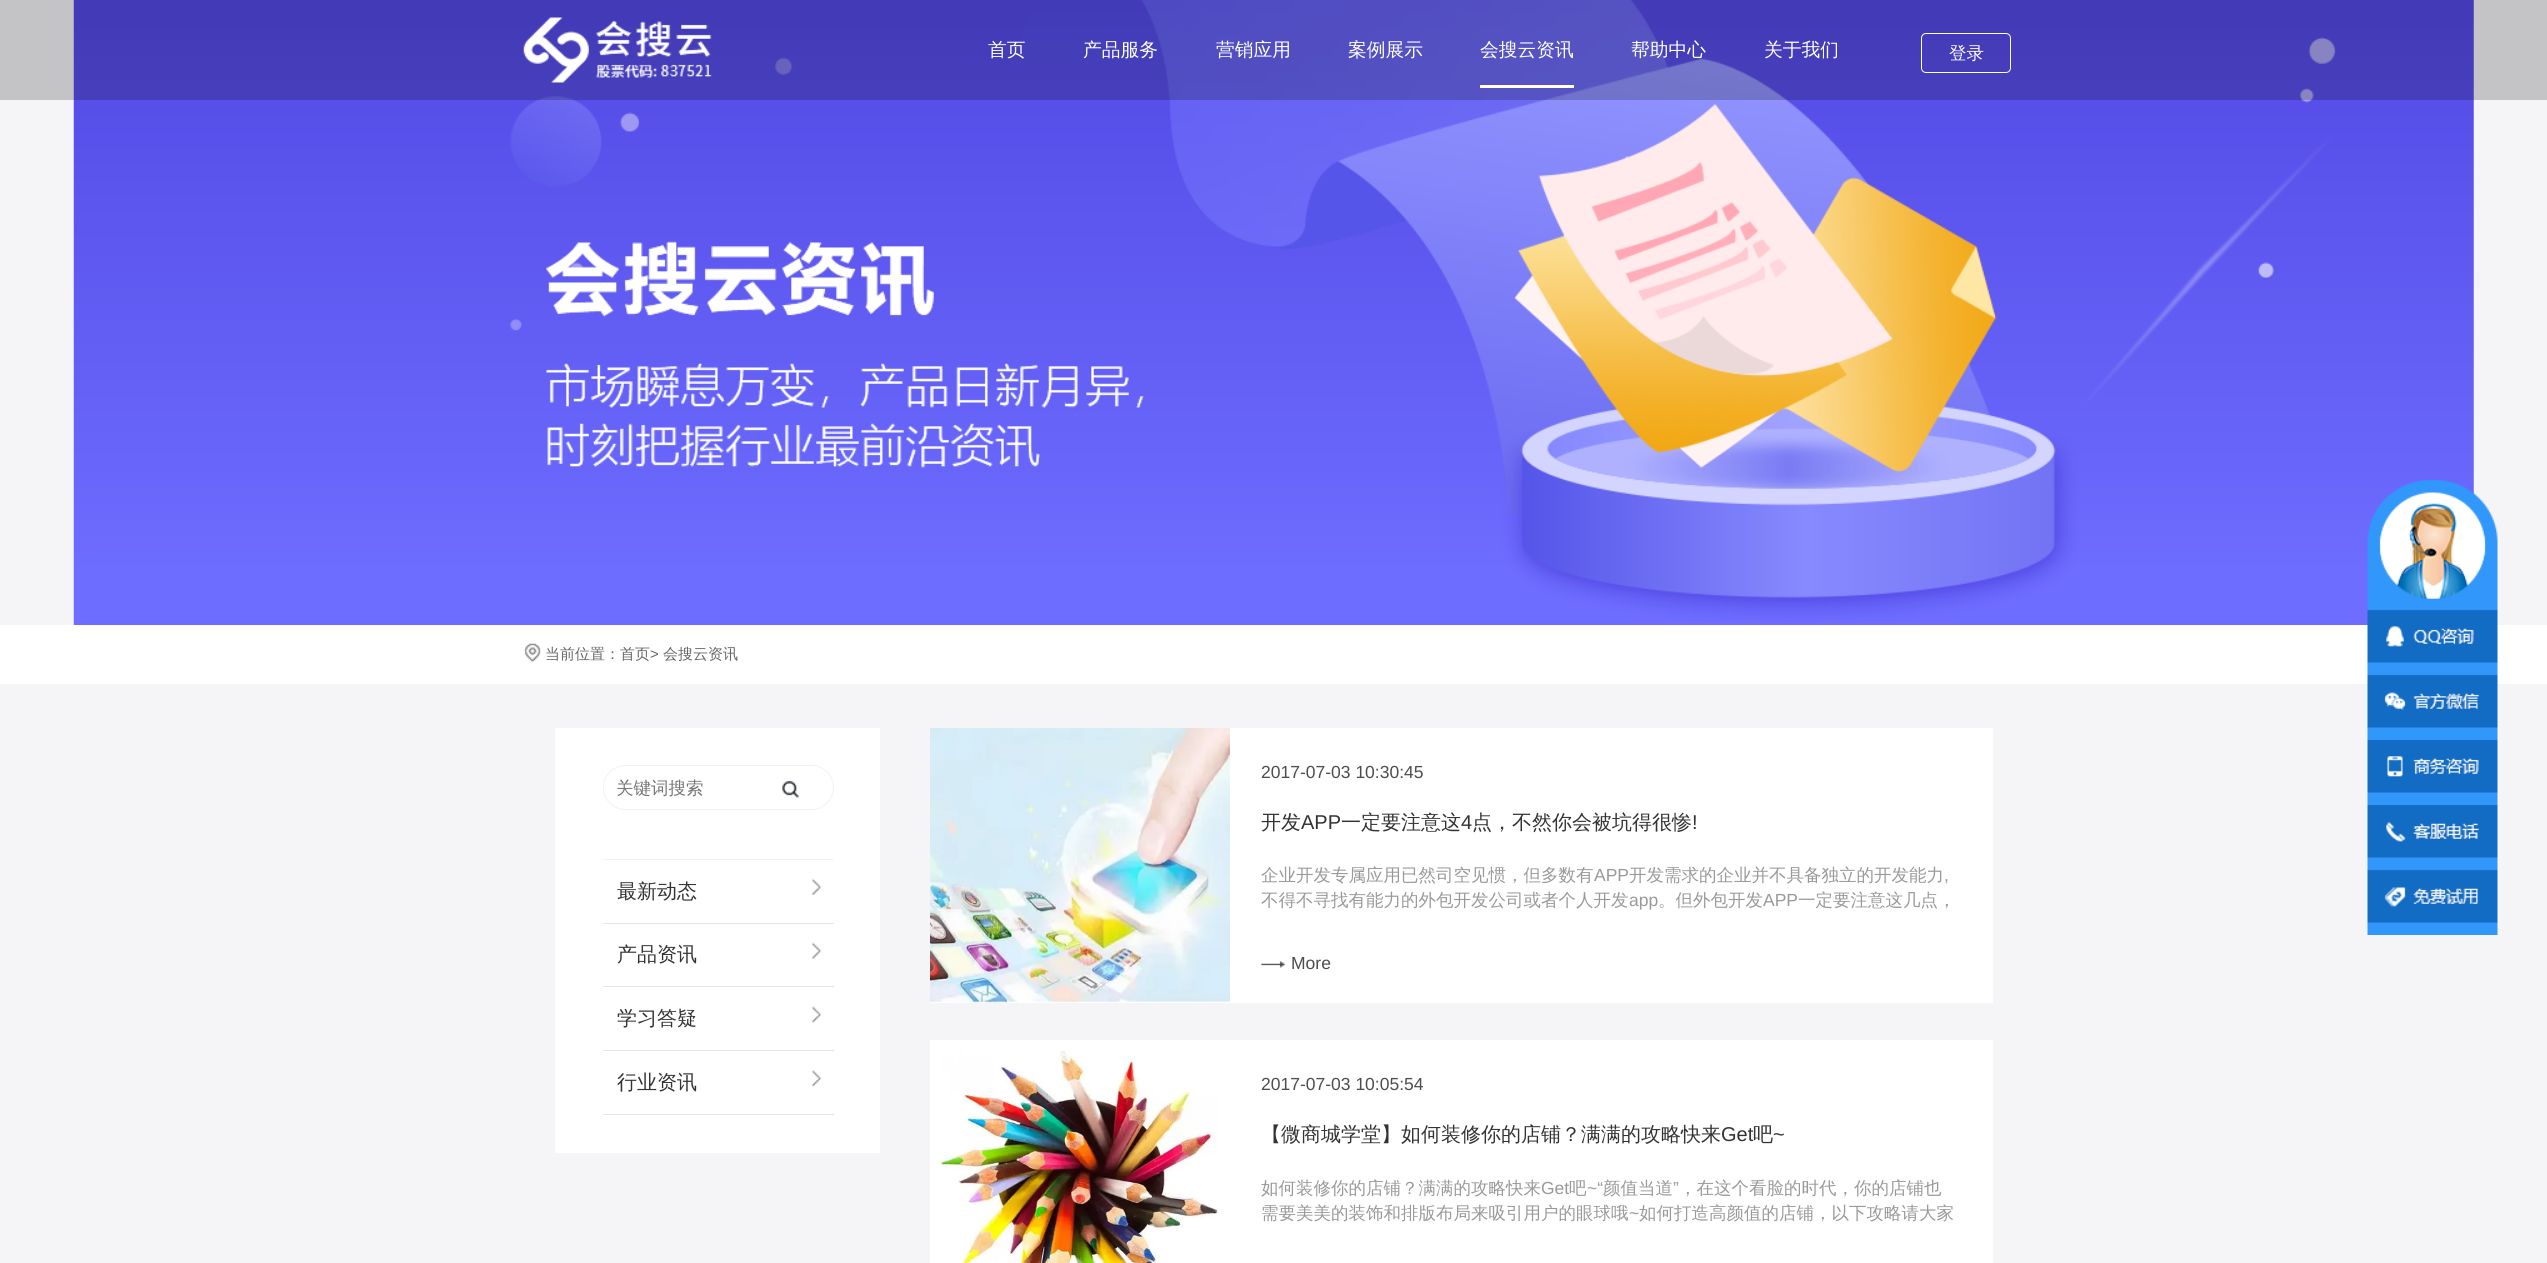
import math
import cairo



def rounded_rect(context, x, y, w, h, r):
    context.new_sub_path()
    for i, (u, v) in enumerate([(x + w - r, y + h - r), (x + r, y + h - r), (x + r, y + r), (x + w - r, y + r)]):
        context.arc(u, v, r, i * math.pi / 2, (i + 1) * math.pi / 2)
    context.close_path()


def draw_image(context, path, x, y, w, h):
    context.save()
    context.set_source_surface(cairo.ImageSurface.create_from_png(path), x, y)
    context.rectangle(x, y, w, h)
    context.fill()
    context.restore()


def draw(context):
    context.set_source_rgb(245 / 255, 245 / 255, 247 / 255)
    context.paint()
    draw_image(context, "images/2.png", 73, 0, 2401, 625)
    context.set_source_rgba(0, 0, 0, 0.2)
    context.rectangle(0, 0, 2547, 100)
    context.fill()
    draw_image(context, "images/1.png", 523, 17, 189, 66)
    context.set_source_rgb(1, 1, 1)
    context.rectangle(1480, 85, 94, 3)
    context.fill()
    rounded_rect(context, 1921.5, 33.5, 89, 39, 4.5)
    context.set_line_width(1)
    context.stroke()
    context.rectangle(0, 625, 2547, 59)
    context.fill()
    draw_image(context, "images/3.png", 524, 643, 17, 19)
    context.rectangle(555, 728, 325, 425)
    context.fill()
    context.set_source_rgb(240 / 255, 242 / 255, 245 / 255)
    context.rectangle(603, 859, 231, 1)
    context.fill()
    rounded_rect(context, 603.5, 765.5, 230, 44, 22)
    context.stroke()
    draw_image(context, "images/4.png", 782, 781, 17, 17)
    draw_image(context, "images/5.png", 812, 878, 10, 17)
    context.set_source_rgb(228 / 255, 228 / 255, 228 / 255)
    context.rectangle(603, 923, 231, 1)
    context.fill()
    draw_image(context, "images/6.png", 812, 942, 10, 17)
    context.rectangle(603, 986, 231, 1)
    context.fill()
    draw_image(context, "images/7.png", 812, 1006, 10, 17)
    context.rectangle(603, 1050, 231, 1)
    context.fill()
    draw_image(context, "images/8.png", 812, 1070, 10, 17)
    context.rectangle(603, 1114, 231, 1)
    context.fill()
    context.set_source_rgb(1, 1, 1)
    context.rectangle(930, 728, 1063, 275)
    context.fill()
    draw_image(context, "images/9.png", 930, 728, 300, 275)
    draw_image(context, "images/10.png", 1261, 961, 24, 7)
    context.rectangle(930, 1040, 1063, 223)
    context.fill()
    draw_image(context, "images/11.png", 940, 1049, 279, 214)
    draw_image(context, "images/12.png", 2367, 479, 131, 456)
    context.select_font_face("WenQuanYi Zen Hei Medium")
    context.set_font_size(18.75)
    context.move_to(988, 56)
    context.show_text("首页")
    context.move_to(1083, 56)
    context.show_text("产品服务")
    context.move_to(1216, 56)
    context.show_text("营销应用")
    context.move_to(1348, 56)
    context.show_text("案例展示")
    context.move_to(1480, 56)
    context.show_text("会搜云资讯")
    context.move_to(1631, 56)
    context.show_text("帮助中心")
    context.move_to(1764, 56)
    context.show_text("关于我们")
    context.set_font_size(17.5)
    context.move_to(1949, 59)
    context.show_text("登录")
    context.set_font_size(15)
    context.set_source_rgb(102 / 255, 102 / 255, 102 / 255)
    context.move_to(545, 659)
    context.show_text("当前位置：首页")
    context.select_font_face("Liberation Sans")
    context.move_to(650, 659)
    context.show_text(">")
    context.select_font_face("WenQuanYi Zen Hei Medium")
    context.move_to(663, 659)
    context.show_text("会搜云资讯")
    context.save()
    rounded_rect(context, 616, 766, 163, 43, 21.5)
    context.clip()
    context.set_font_size(17.5)
    context.set_source_rgb(117 / 255, 117 / 255, 117 / 255)
    context.move_to(616, 794)
    context.show_text("关键词搜索")
    context.restore()
    context.set_font_size(20)
    context.set_source_rgb(51 / 255, 51 / 255, 51 / 255)
    context.move_to(617, 898)
    context.show_text("最新动态")
    context.move_to(617, 961)
    context.show_text("产品资讯")
    context.move_to(617, 1025)
    context.show_text("学习答疑")
    context.move_to(617, 1089)
    context.show_text("行业资讯")
    context.select_font_face("Liberation Sans")
    context.set_font_size(17.5)
    context.set_source_rgb(77 / 255, 77 / 255, 77 / 255)
    context.move_to(1261, 778)
    context.show_text("2017-07-03 10:30:45")
    context.select_font_face("WenQuanYi Zen Hei Medium")
    context.set_font_size(20)
    context.set_source_rgb(51 / 255, 51 / 255, 51 / 255)
    context.move_to(1261, 829)
    context.show_text("开发")
    context.select_font_face("Liberation Sans")
    context.move_to(1301, 829)
    context.show_text("APP")
    context.select_font_face("WenQuanYi Zen Hei Medium")
    context.move_to(1341, 829)
    context.show_text("一定要注意这")
    context.select_font_face("Liberation Sans")
    context.move_to(1461, 829)
    context.show_text("4")
    context.select_font_face("WenQuanYi Zen Hei Medium")
    context.move_to(1472, 829)
    context.show_text("点，不然你会被坑得很惨")
    context.select_font_face("Liberation Sans")
    context.move_to(1692, 829)
    context.show_text("!")
    context.select_font_face("WenQuanYi Zen Hei Medium")
    context.set_font_size(17.5)
    context.set_source_rgb(153 / 255, 153 / 255, 153 / 255)
    context.move_to(1261, 881)
    context.show_text("企业开发专属应用已然司空见惯，但多数有")
    context.select_font_face("Liberation Sans")
    context.move_to(1594, 881)
    context.show_text("APP")
    context.select_font_face("WenQuanYi Zen Hei Medium")
    context.move_to(1629, 881)
    context.show_text("开发需求的企业并不具备独立的开发能力")
    context.select_font_face("Liberation Sans")
    context.move_to(1944, 881)
    context.show_text(",")
    context.select_font_face("WenQuanYi Zen Hei Medium")
    context.move_to(1261, 906)
    context.show_text("不得不寻找有能力的外包开发公司或者个人开发")
    context.select_font_face("Liberation Sans")
    context.move_to(1629, 906)
    context.show_text("app")
    context.select_font_face("WenQuanYi Zen Hei Medium")
    context.move_to(1658, 906)
    context.show_text("。但外包开发")
    context.select_font_face("Liberation Sans")
    context.move_to(1763, 906)
    context.show_text("APP")
    context.select_font_face("WenQuanYi Zen Hei Medium")
    context.move_to(1798, 906)
    context.show_text("一定要注意这几点，")
    context.select_font_face("Liberation Sans")
    context.set_source_rgb(77 / 255, 77 / 255, 77 / 255)
    context.move_to(1291, 969)
    context.show_text("More")
    context.move_to(1261, 1090)
    context.show_text("2017-07-03 10:05:54")
    context.select_font_face("WenQuanYi Zen Hei Medium")
    context.set_font_size(20)
    context.set_source_rgb(51 / 255, 51 / 255, 51 / 255)
    context.move_to(1261, 1141)
    context.show_text("【微商城学堂】如何装修你的店铺？满满的攻略快来")
    context.select_font_face("Liberation Sans")
    context.move_to(1721, 1141)
    context.show_text("Get")
    context.select_font_face("WenQuanYi Zen Hei Medium")
    context.move_to(1753, 1141)
    context.show_text("吧")
    context.select_font_face("Liberation Sans")
    context.move_to(1773, 1141)
    context.show_text("~")
    context.select_font_face("WenQuanYi Zen Hei Medium")
    context.set_font_size(17.5)
    context.set_source_rgb(153 / 255, 153 / 255, 153 / 255)
    context.move_to(1261, 1194)
    context.show_text("如何装修你的店铺？满满的攻略快来")
    context.select_font_face("Liberation Sans")
    context.move_to(1541, 1194)
    context.show_text("Get")
    context.select_font_face("WenQuanYi Zen Hei Medium")
    context.move_to(1569, 1194)
    context.show_text("吧")
    context.select_font_face("Liberation Sans")
    context.move_to(1587, 1194)
    context.show_text("~“")
    context.select_font_face("WenQuanYi Zen Hei Medium")
    context.move_to(1603, 1194)
    context.show_text("颜值当道")
    context.select_font_face("Liberation Sans")
    context.move_to(1673, 1194)
    context.show_text("”")
    context.select_font_face("WenQuanYi Zen Hei Medium")
    context.move_to(1679, 1194)
    context.show_text("，在这个看脸的时代，你的店铺也")
    context.move_to(1261, 1219)
    context.show_text("需要美美的装饰和排版布局来吸引用户的眼球哦")
    context.select_font_face("Liberation Sans")
    context.move_to(1629, 1219)
    context.show_text("~")
    context.select_font_face("WenQuanYi Zen Hei Medium")
    context.move_to(1639, 1219)
    context.show_text("如何打造高颜值的店铺，以下攻略请大家")


surface = cairo.ImageSurface(cairo.Format.RGB24, 2547, 1263)
context = cairo.Context(surface)
options = cairo.FontOptions()
options.set_hint_metrics(cairo.HintMetrics.OFF)
options.set_hint_style(cairo.HintStyle.NONE)
context.set_font_options(options)
context.set_miter_limit(4)
draw(context)
surface.write_to_png("out.png")
